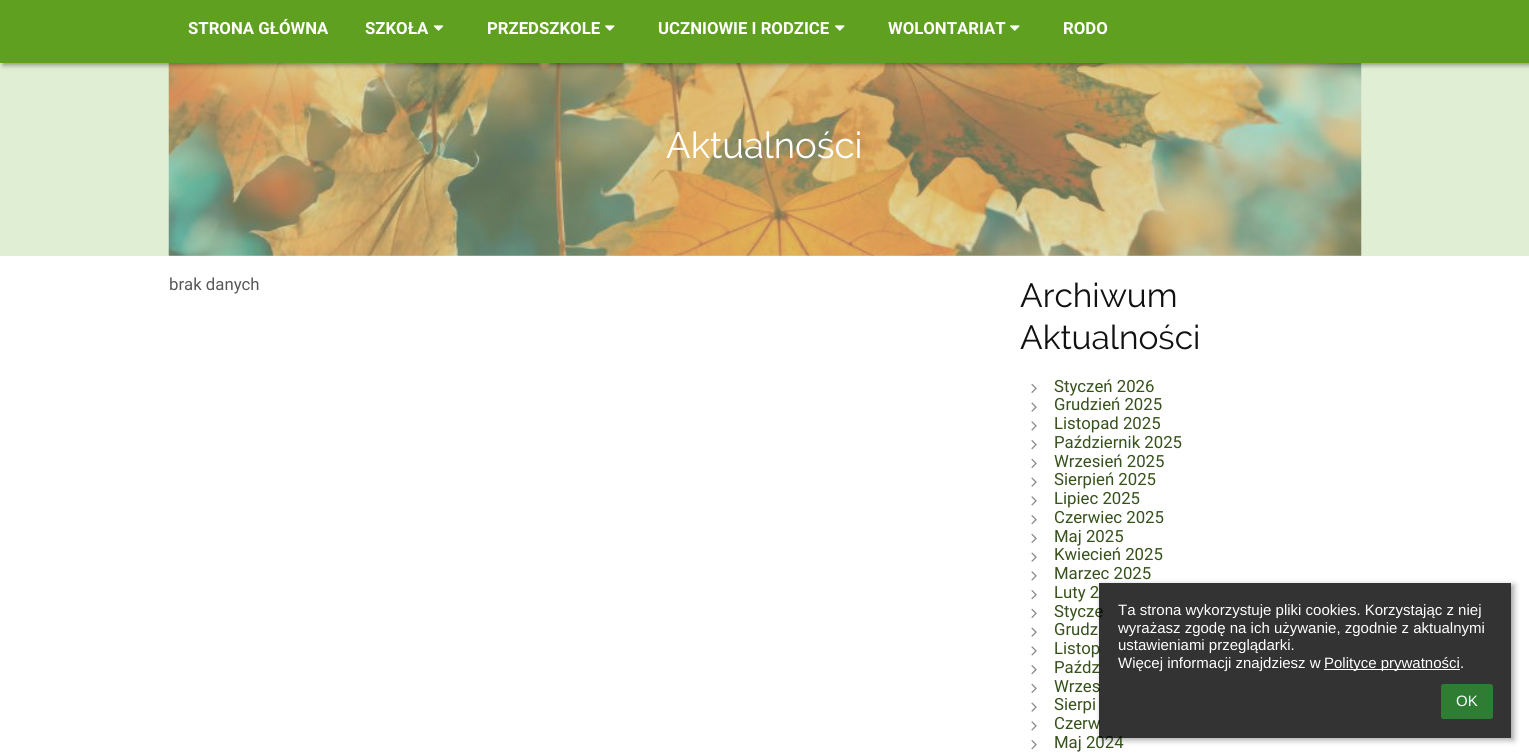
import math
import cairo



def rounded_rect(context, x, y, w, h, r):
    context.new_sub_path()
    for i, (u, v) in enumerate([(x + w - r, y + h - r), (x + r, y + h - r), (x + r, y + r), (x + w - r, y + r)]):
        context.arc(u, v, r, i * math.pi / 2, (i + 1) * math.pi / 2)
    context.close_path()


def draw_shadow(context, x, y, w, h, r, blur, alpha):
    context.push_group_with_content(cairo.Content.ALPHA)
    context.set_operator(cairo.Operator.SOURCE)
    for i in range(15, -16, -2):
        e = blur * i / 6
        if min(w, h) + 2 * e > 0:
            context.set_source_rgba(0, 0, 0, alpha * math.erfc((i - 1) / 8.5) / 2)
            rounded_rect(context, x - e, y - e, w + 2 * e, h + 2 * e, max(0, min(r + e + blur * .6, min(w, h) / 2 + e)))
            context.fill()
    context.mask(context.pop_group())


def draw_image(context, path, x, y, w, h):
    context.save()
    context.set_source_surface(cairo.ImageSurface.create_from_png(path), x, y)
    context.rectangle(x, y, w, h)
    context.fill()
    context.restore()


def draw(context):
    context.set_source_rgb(1, 1, 1)
    context.paint()
    context.set_source_rgb(224 / 255, 238 / 255, 211 / 255)
    context.rectangle(0, 63, 1529, 193)
    context.fill()
    draw_image(context, "images/3.png", 168, 63, 1194, 193)
    context.set_source_rgb(0, 0, 0)
    draw_shadow(context, 3, 3, 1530, 62, 0, 2.5, 0.4)
    context.set_source_rgb(96 / 255, 160 / 255, 32 / 255)
    context.rectangle(0, 0, 1529, 63)
    context.fill()
    draw_image(context, "images/1.png", 433, 25, 11, 6)
    draw_image(context, "images/2.png", 605, 25, 10, 6)
    draw_image(context, "images/2.png", 835, 25, 10, 6)
    draw_image(context, "images/2.png", 1010, 25, 10, 6)
    draw_image(context, "images/4.png", 1031, 383, 6, 10)
    draw_image(context, "images/5.png", 1031, 402, 6, 10)
    draw_image(context, "images/6.png", 1031, 421, 6, 10)
    draw_image(context, "images/7.png", 1031, 440, 6, 10)
    draw_image(context, "images/4.png", 1031, 458, 6, 10)
    draw_image(context, "images/5.png", 1031, 477, 6, 10)
    draw_image(context, "images/6.png", 1031, 496, 6, 10)
    draw_image(context, "images/7.png", 1031, 515, 6, 10)
    draw_image(context, "images/4.png", 1031, 533, 6, 10)
    draw_image(context, "images/5.png", 1031, 552, 6, 10)
    draw_image(context, "images/6.png", 1031, 571, 6, 10)
    draw_image(context, "images/7.png", 1031, 590, 6, 10)
    draw_image(context, "images/4.png", 1031, 608, 6, 10)
    draw_image(context, "images/5.png", 1031, 627, 6, 10)
    draw_image(context, "images/6.png", 1031, 646, 6, 10)
    draw_image(context, "images/7.png", 1031, 665, 6, 10)
    draw_image(context, "images/4.png", 1031, 683, 6, 10)
    draw_image(context, "images/5.png", 1031, 702, 6, 10)
    draw_image(context, "images/6.png", 1031, 721, 6, 10)
    draw_image(context, "images/7.png", 1031, 740, 6, 10)
    context.save()
    context.set_fill_rule(cairo.FillRule.EVEN_ODD)
    context.new_path()
    context.move_to(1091, 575)
    context.line_to(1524, 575)
    context.line_to(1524, 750)
    context.line_to(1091, 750)
    context.close_path()
    context.move_to(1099, 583)
    context.line_to(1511, 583)
    context.line_to(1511, 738)
    context.line_to(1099, 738)
    context.close_path()
    context.clip()
    context.set_source_rgb(0, 0, 0)
    draw_shadow(context, 1101, 585, 413, 155, 0, 3, 0.35)
    context.restore()
    context.select_font_face("Roboto", cairo.FontSlant.NORMAL, cairo.FontWeight.BOLD)
    context.set_font_size(16.75)
    context.set_source_rgb(1, 1, 1)
    context.move_to(188, 34)
    context.show_text("STRONA GŁÓWNA")
    context.move_to(365, 34)
    context.show_text("SZKOŁA")
    context.move_to(487, 34)
    context.show_text("PRZEDSZKOLE")
    context.move_to(658, 34)
    context.show_text("UCZNIOWIE I RODZICE")
    context.move_to(888, 34)
    context.show_text("WOLONTARIAT")
    context.move_to(1063, 34)
    context.show_text("RODO")
    context.select_font_face("Raleway")
    context.set_font_size(36.5)
    context.move_to(666, 158)
    context.show_text("Aktualności")
    context.select_font_face("Roboto")
    context.set_font_size(16.75)
    context.set_source_rgb(88 / 255, 88 / 255, 88 / 255)
    context.move_to(169, 290)
    context.show_text("brak danych")
    context.select_font_face("Raleway")
    context.set_font_size(33.5)
    context.set_source_rgb(17 / 255, 17 / 255, 17 / 255)
    context.move_to(1020, 307)
    context.show_text("Archiwum")
    context.move_to(1020, 349)
    context.show_text("Aktualności")
    context.select_font_face("Roboto")
    context.set_font_size(16.75)
    context.set_source_rgb(54 / 255, 81 / 255, 27 / 255)
    context.move_to(1054, 392)
    context.show_text("Styczeń 2026")
    context.move_to(1054, 410)
    context.show_text("Grudzień 2025")
    context.move_to(1054, 429)
    context.show_text("Listopad 2025")
    context.move_to(1054, 448)
    context.show_text("Październik 2025")
    context.move_to(1054, 467)
    context.show_text("Wrzesień 2025")
    context.move_to(1054, 485)
    context.show_text("Sierpień 2025")
    context.move_to(1054, 504)
    context.show_text("Lipiec 2025")
    context.move_to(1054, 523)
    context.show_text("Czerwiec 2025")
    context.move_to(1054, 542)
    context.show_text("Maj 2025")
    context.move_to(1054, 560)
    context.show_text("Kwiecień 2025")
    context.move_to(1054, 579)
    context.show_text("Marzec 2025")
    context.move_to(1054, 598)
    context.show_text("Luty 2")
    context.move_to(1054, 617)
    context.show_text("Stycze")
    context.move_to(1054, 635)
    context.show_text("Grudz")
    context.move_to(1054, 654)
    context.show_text("Listop")
    context.move_to(1054, 673)
    context.show_text("Paźdz")
    context.move_to(1054, 692)
    context.show_text("Wrzes")
    context.move_to(1054, 710)
    context.show_text("Sierpi")
    context.move_to(1054, 729)
    context.show_text("Czerw")
    context.move_to(1054, 748)
    context.show_text("Maj 2024")
    context.set_source_rgba(0, 0, 0, 0.8)
    context.rectangle(1099, 583, 412, 155)
    context.fill()
    context.select_font_face("Liberation Sans")
    context.set_font_size(15)
    context.set_source_rgb(1, 1, 1)
    context.move_to(1118, 615)
    context.show_text("Ta strona wykorzystuje pliki cookies. Korzystając z niej")
    context.move_to(1118, 633)
    context.show_text("wyrażasz zgodę na ich używanie, zgodnie z aktualnymi")
    context.move_to(1118, 650)
    context.show_text("ustawieniami przeglądarki.")
    context.move_to(1118, 668)
    context.show_text("Więcej informacji znajdziesz w")
    context.rectangle(1324, 669, 136, 1)
    context.fill()
    context.move_to(1324, 668)
    context.show_text("Polityce prywatności.")
    context.set_source_rgb(46 / 255, 125 / 255, 50 / 255)
    rounded_rect(context, 1441, 684, 52, 35, 2.5)
    context.fill()
    context.set_source_rgb(1, 1, 1)
    context.move_to(1456, 706)
    context.show_text("OK")


surface = cairo.ImageSurface(cairo.Format.RGB24, 1529, 756)
context = cairo.Context(surface)
options = cairo.FontOptions()
options.set_hint_metrics(cairo.HintMetrics.OFF)
options.set_hint_style(cairo.HintStyle.NONE)
context.set_font_options(options)
context.set_miter_limit(4)
draw(context)
surface.write_to_png("out.png")
